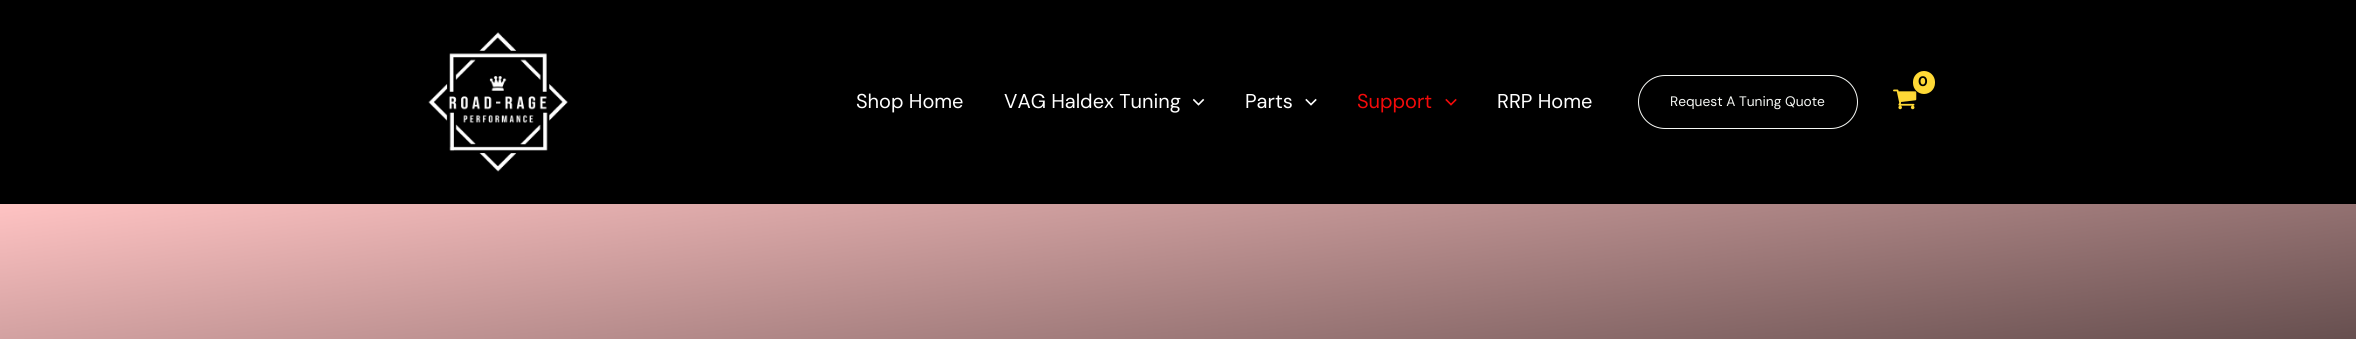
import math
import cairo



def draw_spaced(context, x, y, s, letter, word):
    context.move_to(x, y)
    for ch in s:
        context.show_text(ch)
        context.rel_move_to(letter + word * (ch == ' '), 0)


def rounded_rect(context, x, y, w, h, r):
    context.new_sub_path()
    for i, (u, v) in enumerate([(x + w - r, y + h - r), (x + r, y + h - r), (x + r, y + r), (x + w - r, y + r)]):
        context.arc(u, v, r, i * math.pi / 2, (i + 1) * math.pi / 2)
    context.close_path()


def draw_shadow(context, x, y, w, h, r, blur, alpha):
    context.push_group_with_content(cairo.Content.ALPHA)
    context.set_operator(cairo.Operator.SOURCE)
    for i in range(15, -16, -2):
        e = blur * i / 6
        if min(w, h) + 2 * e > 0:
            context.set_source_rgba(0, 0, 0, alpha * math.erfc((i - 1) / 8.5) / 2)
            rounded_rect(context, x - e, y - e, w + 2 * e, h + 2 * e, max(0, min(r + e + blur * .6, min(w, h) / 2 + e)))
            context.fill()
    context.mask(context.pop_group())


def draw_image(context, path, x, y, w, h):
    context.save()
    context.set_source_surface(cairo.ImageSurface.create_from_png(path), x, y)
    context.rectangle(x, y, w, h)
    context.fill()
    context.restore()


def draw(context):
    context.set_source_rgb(0, 0, 0)
    context.paint()
    draw_image(context, "images/1.png", 428, 32, 140, 140)
    draw_image(context, "images/2.png", 1893, 89, 24, 21)
    draw_shadow(context, 1914, 73, 22, 22, 11, 2, 0.3)
    context.set_source_rgb(1, 217 / 255, 54 / 255)
    rounded_rect(context, 1913, 71, 22, 23, 11)
    context.fill()
    draw_image(context, "images/3.png", 1193, 98, 12, 8)
    draw_image(context, "images/4.png", 1305, 98, 12, 8)
    draw_image(context, "images/5.png", 1445, 98, 12, 8)
    rounded_rect(context, 1638.5, 75.5, 219, 53, 26.5)
    context.set_source_rgb(246 / 255, 248 / 255, 245 / 255)
    context.set_line_width(1)
    context.stroke()
    gradient = cairo.LinearGradient(1126, 46, 1230, 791)
    gradient.add_color_stop_rgba(0, 1, 195 / 255, 195 / 255, 1)
    gradient.add_color_stop_rgba(1, 6 / 255, 6 / 255, 6 / 255, 1)
    context.set_source(gradient)
    context.rectangle(0, 204, 2356, 135)
    context.fill()
    context.select_font_face("DM Sans", cairo.FontSlant.NORMAL, cairo.FontWeight.BOLD)
    context.set_font_size(13.75)
    context.set_source_rgb(0, 0, 0)
    draw_spaced(context, 1918, 86, "0", -1, 0)
    context.select_font_face("DM Sans")
    context.set_font_size(20)
    context.set_source_rgb(1, 1, 1)
    context.move_to(856, 108)
    context.show_text("Shop Home")
    context.move_to(1004, 108)
    context.show_text("VAG Haldex Tuning")
    context.move_to(1245, 108)
    context.show_text("Parts")
    context.set_source_rgb(244 / 255, 10 / 255, 10 / 255)
    context.move_to(1357, 108)
    context.show_text("Support")
    context.set_source_rgb(1, 1, 1)
    context.move_to(1497, 108)
    context.show_text("RRP Home")
    context.set_font_size(13.75)
    context.set_source_rgb(246 / 255, 248 / 255, 245 / 255)
    context.move_to(1670, 106)
    context.show_text("Request A Tuning Quote")


surface = cairo.ImageSurface(cairo.Format.RGB24, 2356, 339)
context = cairo.Context(surface)
options = cairo.FontOptions()
options.set_hint_metrics(cairo.HintMetrics.OFF)
options.set_hint_style(cairo.HintStyle.NONE)
context.set_font_options(options)
context.set_miter_limit(4)
draw(context)
surface.write_to_png("out.png")
